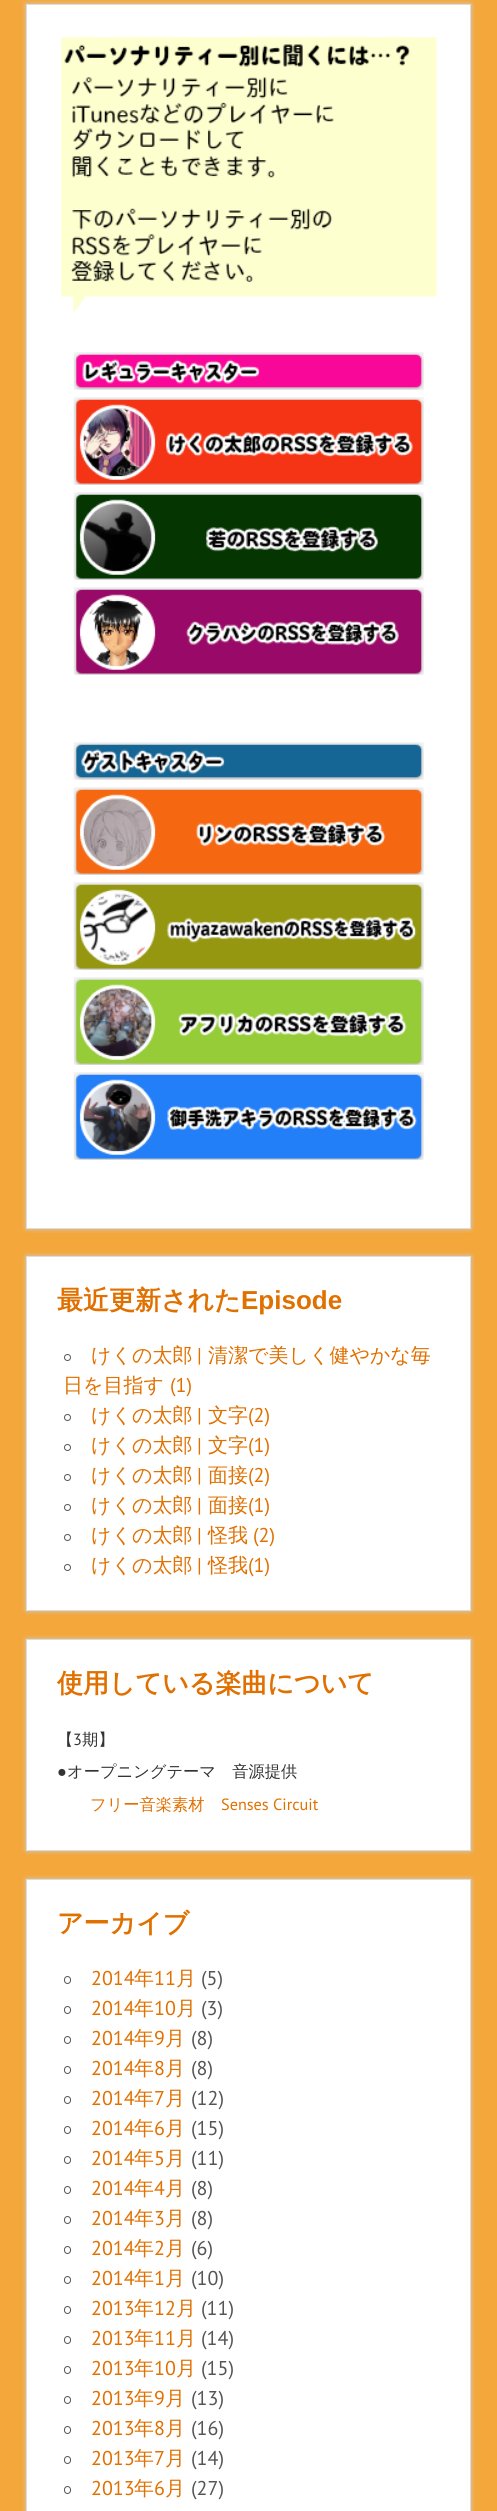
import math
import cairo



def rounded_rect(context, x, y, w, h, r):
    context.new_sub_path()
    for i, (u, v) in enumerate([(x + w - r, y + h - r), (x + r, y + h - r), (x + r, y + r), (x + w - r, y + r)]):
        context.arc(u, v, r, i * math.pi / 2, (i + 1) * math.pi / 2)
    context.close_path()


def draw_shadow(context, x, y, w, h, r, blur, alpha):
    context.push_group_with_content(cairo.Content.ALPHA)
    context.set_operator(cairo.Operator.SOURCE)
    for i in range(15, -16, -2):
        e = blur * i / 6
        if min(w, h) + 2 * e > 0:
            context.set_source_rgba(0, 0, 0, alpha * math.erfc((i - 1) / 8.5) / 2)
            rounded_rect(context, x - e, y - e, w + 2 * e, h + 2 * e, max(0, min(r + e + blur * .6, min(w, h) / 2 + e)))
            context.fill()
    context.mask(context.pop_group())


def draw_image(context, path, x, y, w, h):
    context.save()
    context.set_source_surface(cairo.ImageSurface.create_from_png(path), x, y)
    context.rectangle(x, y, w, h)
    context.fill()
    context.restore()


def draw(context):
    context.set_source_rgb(244 / 255, 167 / 255, 58 / 255)
    context.paint()
    context.set_source_rgb(204 / 255, 204 / 255, 204 / 255)
    draw_shadow(context, 26, 4, 445, 1225, 0, 2.5, 1)
    context.set_source_rgb(1, 1, 1)
    context.rectangle(26.5, 4.5, 444, 1224)
    context.fill_preserve()
    context.set_source_rgb(221 / 255, 221 / 255, 221 / 255)
    context.set_line_width(1)
    context.stroke()
    draw_image(context, "images/1.png", 61, 37, 376, 276)
    draw_image(context, "images/2.png", 73, 352, 351, 38)
    draw_image(context, "images/3.png", 73, 397, 351, 88)
    draw_image(context, "images/4.png", 73, 492, 351, 88)
    draw_image(context, "images/5.png", 73, 587, 351, 88)
    draw_image(context, "images/6.png", 73, 742, 351, 38)
    draw_image(context, "images/7.png", 73, 787, 351, 88)
    draw_image(context, "images/8.png", 73, 882, 351, 88)
    draw_image(context, "images/9.png", 73, 977, 351, 88)
    draw_image(context, "images/10.png", 73, 1072, 351, 88)
    context.set_source_rgb(204 / 255, 204 / 255, 204 / 255)
    draw_shadow(context, 26, 1256, 445, 355, 0, 2.5, 1)
    context.set_source_rgb(1, 1, 1)
    context.rectangle(26.5, 1256.5, 444, 354)
    context.fill_preserve()
    context.set_source_rgb(221 / 255, 221 / 255, 221 / 255)
    context.stroke()
    context.arc(67.5, 1357.5, 3, 0, 2 * math.pi)
    context.set_source_rgb(85 / 255, 85 / 255, 85 / 255)
    context.stroke()
    context.arc(67.5, 1417.5, 3, 0, 2 * math.pi)
    context.stroke()
    context.arc(67.5, 1447.5, 3, 0, 2 * math.pi)
    context.stroke()
    context.arc(67.5, 1477.5, 3, 0, 2 * math.pi)
    context.stroke()
    context.arc(67.5, 1507.5, 3, 0, 2 * math.pi)
    context.stroke()
    context.arc(67.5, 1537.5, 3, 0, 2 * math.pi)
    context.stroke()
    context.arc(67.5, 1567.5, 3, 0, 2 * math.pi)
    context.stroke()
    context.set_source_rgb(204 / 255, 204 / 255, 204 / 255)
    draw_shadow(context, 26, 1639, 445, 212, 0, 2.5, 1)
    context.set_source_rgb(1, 1, 1)
    context.rectangle(26.5, 1639.5, 444, 211)
    context.fill_preserve()
    context.set_source_rgb(221 / 255, 221 / 255, 221 / 255)
    context.stroke()
    context.set_source_rgb(204 / 255, 204 / 255, 204 / 255)
    draw_shadow(context, 26, 1879, 445, 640, 0, 2.5, 1)
    context.set_source_rgb(1, 1, 1)
    context.rectangle(26.5, 1879.5, 444, 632)
    context.fill_preserve()
    context.set_source_rgb(221 / 255, 221 / 255, 221 / 255)
    context.stroke()
    rounded_rect(context, 64.5, 1976.5, 6, 7, 3)
    context.set_source_rgb(85 / 255, 85 / 255, 85 / 255)
    context.stroke()
    rounded_rect(context, 64.5, 2006.5, 6, 7, 3)
    context.stroke()
    rounded_rect(context, 64.5, 2036.5, 6, 7, 3)
    context.stroke()
    rounded_rect(context, 64.5, 2066.5, 6, 7, 3)
    context.stroke()
    rounded_rect(context, 64.5, 2096.5, 6, 7, 3)
    context.stroke()
    rounded_rect(context, 64.5, 2126.5, 6, 7, 3)
    context.stroke()
    rounded_rect(context, 64.5, 2156.5, 6, 7, 3)
    context.stroke()
    rounded_rect(context, 64.5, 2186.5, 6, 7, 3)
    context.stroke()
    rounded_rect(context, 64.5, 2216.5, 6, 7, 3)
    context.stroke()
    rounded_rect(context, 64.5, 2246.5, 6, 7, 3)
    context.stroke()
    rounded_rect(context, 64.5, 2276.5, 6, 7, 3)
    context.stroke()
    rounded_rect(context, 64.5, 2306.5, 6, 7, 3)
    context.stroke()
    rounded_rect(context, 64.5, 2336.5, 6, 7, 3)
    context.stroke()
    rounded_rect(context, 64.5, 2366.5, 6, 7, 3)
    context.stroke()
    rounded_rect(context, 64.5, 2396.5, 6, 7, 3)
    context.stroke()
    rounded_rect(context, 64.5, 2426.5, 6, 7, 3)
    context.stroke()
    rounded_rect(context, 64.5, 2456.5, 6, 7, 3)
    context.stroke()
    rounded_rect(context, 64.5, 2486.5, 6, 7, 3)
    context.stroke()
    context.select_font_face("WenQuanYi Zen Hei", cairo.FontSlant.NORMAL, cairo.FontWeight.BOLD)
    context.set_font_size(26)
    context.set_source_rgb(224 / 255, 112 / 255, 0)
    context.move_to(57, 1309)
    context.show_text("最近更新された")
    context.select_font_face("Liberation Sans", cairo.FontSlant.NORMAL, cairo.FontWeight.BOLD)
    context.move_to(241, 1309)
    context.show_text("Episode")
    context.select_font_face("WenQuanYi Zen Hei Medium")
    context.set_font_size(20)
    context.move_to(91, 1362)
    context.show_text("けくの太郎")
    context.select_font_face("PT Sans")
    context.move_to(197, 1362)
    context.show_text("|")
    context.select_font_face("WenQuanYi Zen Hei Medium")
    context.move_to(208, 1362)
    context.show_text("清潔で美しく健やかな毎")
    context.move_to(63, 1392)
    context.show_text("日を目指す")
    context.select_font_face("PT Sans")
    context.move_to(170, 1392)
    context.show_text("(1)")
    context.select_font_face("WenQuanYi Zen Hei Medium")
    context.move_to(91, 1422)
    context.show_text("けくの太郎")
    context.select_font_face("PT Sans")
    context.move_to(197, 1422)
    context.show_text("|")
    context.select_font_face("WenQuanYi Zen Hei Medium")
    context.move_to(208, 1422)
    context.show_text("文字")
    context.select_font_face("PT Sans")
    context.move_to(248, 1422)
    context.show_text("(2)")
    context.select_font_face("WenQuanYi Zen Hei Medium")
    context.move_to(91, 1452)
    context.show_text("けくの太郎")
    context.select_font_face("PT Sans")
    context.move_to(197, 1452)
    context.show_text("|")
    context.select_font_face("WenQuanYi Zen Hei Medium")
    context.move_to(208, 1452)
    context.show_text("文字")
    context.select_font_face("PT Sans")
    context.move_to(248, 1452)
    context.show_text("(1)")
    context.select_font_face("WenQuanYi Zen Hei Medium")
    context.move_to(91, 1482)
    context.show_text("けくの太郎")
    context.select_font_face("PT Sans")
    context.move_to(197, 1482)
    context.show_text("|")
    context.select_font_face("WenQuanYi Zen Hei Medium")
    context.move_to(208, 1482)
    context.show_text("面接")
    context.select_font_face("PT Sans")
    context.move_to(248, 1482)
    context.show_text("(2)")
    context.select_font_face("WenQuanYi Zen Hei Medium")
    context.move_to(91, 1512)
    context.show_text("けくの太郎")
    context.select_font_face("PT Sans")
    context.move_to(197, 1512)
    context.show_text("|")
    context.select_font_face("WenQuanYi Zen Hei Medium")
    context.move_to(208, 1512)
    context.show_text("面接")
    context.select_font_face("PT Sans")
    context.move_to(248, 1512)
    context.show_text("(1)")
    context.select_font_face("WenQuanYi Zen Hei Medium")
    context.move_to(91, 1542)
    context.show_text("けくの太郎")
    context.select_font_face("PT Sans")
    context.move_to(197, 1542)
    context.show_text("|")
    context.select_font_face("WenQuanYi Zen Hei Medium")
    context.move_to(208, 1542)
    context.show_text("怪我")
    context.select_font_face("PT Sans")
    context.move_to(253, 1542)
    context.show_text("(2)")
    context.select_font_face("WenQuanYi Zen Hei Medium")
    context.move_to(91, 1572)
    context.show_text("けくの太郎")
    context.select_font_face("PT Sans")
    context.move_to(197, 1572)
    context.show_text("|")
    context.select_font_face("WenQuanYi Zen Hei Medium")
    context.move_to(208, 1572)
    context.show_text("怪我")
    context.select_font_face("PT Sans")
    context.move_to(248, 1572)
    context.show_text("(1)")
    context.select_font_face("WenQuanYi Zen Hei", cairo.FontSlant.NORMAL, cairo.FontWeight.BOLD)
    context.set_font_size(26)
    context.move_to(57, 1692)
    context.show_text("使用している楽曲について")
    context.select_font_face("WenQuanYi Zen Hei Medium")
    context.set_font_size(16.25)
    context.set_source_rgb(51 / 255, 51 / 255, 51 / 255)
    context.move_to(57, 1745)
    context.show_text("【")
    context.select_font_face("PT Sans")
    context.move_to(73, 1745)
    context.show_text("3")
    context.select_font_face("WenQuanYi Zen Hei Medium")
    context.move_to(82, 1745)
    context.show_text("期】")
    context.select_font_face("Liberation Sans")
    context.move_to(57, 1777)
    context.show_text("●")
    context.select_font_face("WenQuanYi Zen Hei Medium")
    context.move_to(67, 1777)
    context.show_text("オープニングテーマ　音源提供")
    context.set_source_rgb(224 / 255, 112 / 255, 0)
    context.move_to(90, 1810)
    context.show_text("フリー音楽素材")
    context.select_font_face("PT Sans")
    context.move_to(221, 1810)
    context.show_text("Senses Circuit")
    context.select_font_face("WenQuanYi Zen Hei", cairo.FontSlant.NORMAL, cairo.FontWeight.BOLD)
    context.set_font_size(26)
    context.move_to(57, 1932)
    context.show_text("アーカイブ")
    context.select_font_face("PT Sans")
    context.set_font_size(20)
    context.move_to(91, 1985)
    context.show_text("2014")
    context.select_font_face("WenQuanYi Zen Hei Medium")
    context.move_to(134, 1985)
    context.show_text("年")
    context.select_font_face("PT Sans")
    context.move_to(154, 1985)
    context.show_text("11")
    context.select_font_face("WenQuanYi Zen Hei Medium")
    context.move_to(176, 1985)
    context.show_text("月")
    context.select_font_face("PT Sans")
    context.set_source_rgb(85 / 255, 85 / 255, 85 / 255)
    context.move_to(201, 1985)
    context.show_text("(5)")
    context.set_source_rgb(224 / 255, 112 / 255, 0)
    context.move_to(91, 2015)
    context.show_text("2014")
    context.select_font_face("WenQuanYi Zen Hei Medium")
    context.move_to(134, 2015)
    context.show_text("年")
    context.select_font_face("PT Sans")
    context.move_to(154, 2015)
    context.show_text("10")
    context.select_font_face("WenQuanYi Zen Hei Medium")
    context.move_to(176, 2015)
    context.show_text("月")
    context.select_font_face("PT Sans")
    context.set_source_rgb(85 / 255, 85 / 255, 85 / 255)
    context.move_to(201, 2015)
    context.show_text("(3)")
    context.set_source_rgb(224 / 255, 112 / 255, 0)
    context.move_to(91, 2045)
    context.show_text("2014")
    context.select_font_face("WenQuanYi Zen Hei Medium")
    context.move_to(134, 2045)
    context.show_text("年")
    context.select_font_face("PT Sans")
    context.move_to(154, 2045)
    context.show_text("9")
    context.select_font_face("WenQuanYi Zen Hei Medium")
    context.move_to(165, 2045)
    context.show_text("月")
    context.select_font_face("PT Sans")
    context.set_source_rgb(85 / 255, 85 / 255, 85 / 255)
    context.move_to(191, 2045)
    context.show_text("(8)")
    context.set_source_rgb(224 / 255, 112 / 255, 0)
    context.move_to(91, 2075)
    context.show_text("2014")
    context.select_font_face("WenQuanYi Zen Hei Medium")
    context.move_to(134, 2075)
    context.show_text("年")
    context.select_font_face("PT Sans")
    context.move_to(154, 2075)
    context.show_text("8")
    context.select_font_face("WenQuanYi Zen Hei Medium")
    context.move_to(165, 2075)
    context.show_text("月")
    context.select_font_face("PT Sans")
    context.set_source_rgb(85 / 255, 85 / 255, 85 / 255)
    context.move_to(191, 2075)
    context.show_text("(8)")
    context.set_source_rgb(224 / 255, 112 / 255, 0)
    context.move_to(91, 2105)
    context.show_text("2014")
    context.select_font_face("WenQuanYi Zen Hei Medium")
    context.move_to(134, 2105)
    context.show_text("年")
    context.select_font_face("PT Sans")
    context.move_to(154, 2105)
    context.show_text("7")
    context.select_font_face("WenQuanYi Zen Hei Medium")
    context.move_to(165, 2105)
    context.show_text("月")
    context.select_font_face("PT Sans")
    context.set_source_rgb(85 / 255, 85 / 255, 85 / 255)
    context.move_to(191, 2105)
    context.show_text("(12)")
    context.set_source_rgb(224 / 255, 112 / 255, 0)
    context.move_to(91, 2135)
    context.show_text("2014")
    context.select_font_face("WenQuanYi Zen Hei Medium")
    context.move_to(134, 2135)
    context.show_text("年")
    context.select_font_face("PT Sans")
    context.move_to(154, 2135)
    context.show_text("6")
    context.select_font_face("WenQuanYi Zen Hei Medium")
    context.move_to(165, 2135)
    context.show_text("月")
    context.select_font_face("PT Sans")
    context.set_source_rgb(85 / 255, 85 / 255, 85 / 255)
    context.move_to(191, 2135)
    context.show_text("(15)")
    context.set_source_rgb(224 / 255, 112 / 255, 0)
    context.move_to(91, 2165)
    context.show_text("2014")
    context.select_font_face("WenQuanYi Zen Hei Medium")
    context.move_to(134, 2165)
    context.show_text("年")
    context.select_font_face("PT Sans")
    context.move_to(154, 2165)
    context.show_text("5")
    context.select_font_face("WenQuanYi Zen Hei Medium")
    context.move_to(165, 2165)
    context.show_text("月")
    context.select_font_face("PT Sans")
    context.set_source_rgb(85 / 255, 85 / 255, 85 / 255)
    context.move_to(191, 2165)
    context.show_text("(11)")
    context.set_source_rgb(224 / 255, 112 / 255, 0)
    context.move_to(91, 2195)
    context.show_text("2014")
    context.select_font_face("WenQuanYi Zen Hei Medium")
    context.move_to(134, 2195)
    context.show_text("年")
    context.select_font_face("PT Sans")
    context.move_to(154, 2195)
    context.show_text("4")
    context.select_font_face("WenQuanYi Zen Hei Medium")
    context.move_to(165, 2195)
    context.show_text("月")
    context.select_font_face("PT Sans")
    context.set_source_rgb(85 / 255, 85 / 255, 85 / 255)
    context.move_to(191, 2195)
    context.show_text("(8)")
    context.set_source_rgb(224 / 255, 112 / 255, 0)
    context.move_to(91, 2225)
    context.show_text("2014")
    context.select_font_face("WenQuanYi Zen Hei Medium")
    context.move_to(134, 2225)
    context.show_text("年")
    context.select_font_face("PT Sans")
    context.move_to(154, 2225)
    context.show_text("3")
    context.select_font_face("WenQuanYi Zen Hei Medium")
    context.move_to(165, 2225)
    context.show_text("月")
    context.select_font_face("PT Sans")
    context.set_source_rgb(85 / 255, 85 / 255, 85 / 255)
    context.move_to(191, 2225)
    context.show_text("(8)")
    context.set_source_rgb(224 / 255, 112 / 255, 0)
    context.move_to(91, 2255)
    context.show_text("2014")
    context.select_font_face("WenQuanYi Zen Hei Medium")
    context.move_to(134, 2255)
    context.show_text("年")
    context.select_font_face("PT Sans")
    context.move_to(154, 2255)
    context.show_text("2")
    context.select_font_face("WenQuanYi Zen Hei Medium")
    context.move_to(165, 2255)
    context.show_text("月")
    context.select_font_face("PT Sans")
    context.set_source_rgb(85 / 255, 85 / 255, 85 / 255)
    context.move_to(191, 2255)
    context.show_text("(6)")
    context.set_source_rgb(224 / 255, 112 / 255, 0)
    context.move_to(91, 2285)
    context.show_text("2014")
    context.select_font_face("WenQuanYi Zen Hei Medium")
    context.move_to(134, 2285)
    context.show_text("年")
    context.select_font_face("PT Sans")
    context.move_to(154, 2285)
    context.show_text("1")
    context.select_font_face("WenQuanYi Zen Hei Medium")
    context.move_to(165, 2285)
    context.show_text("月")
    context.select_font_face("PT Sans")
    context.set_source_rgb(85 / 255, 85 / 255, 85 / 255)
    context.move_to(191, 2285)
    context.show_text("(10)")
    context.set_source_rgb(224 / 255, 112 / 255, 0)
    context.move_to(91, 2315)
    context.show_text("2013")
    context.select_font_face("WenQuanYi Zen Hei Medium")
    context.move_to(134, 2315)
    context.show_text("年")
    context.select_font_face("PT Sans")
    context.move_to(154, 2315)
    context.show_text("12")
    context.select_font_face("WenQuanYi Zen Hei Medium")
    context.move_to(176, 2315)
    context.show_text("月")
    context.select_font_face("PT Sans")
    context.set_source_rgb(85 / 255, 85 / 255, 85 / 255)
    context.move_to(201, 2315)
    context.show_text("(11)")
    context.set_source_rgb(224 / 255, 112 / 255, 0)
    context.move_to(91, 2345)
    context.show_text("2013")
    context.select_font_face("WenQuanYi Zen Hei Medium")
    context.move_to(134, 2345)
    context.show_text("年")
    context.select_font_face("PT Sans")
    context.move_to(154, 2345)
    context.show_text("11")
    context.select_font_face("WenQuanYi Zen Hei Medium")
    context.move_to(176, 2345)
    context.show_text("月")
    context.select_font_face("PT Sans")
    context.set_source_rgb(85 / 255, 85 / 255, 85 / 255)
    context.move_to(201, 2345)
    context.show_text("(14)")
    context.set_source_rgb(224 / 255, 112 / 255, 0)
    context.move_to(91, 2375)
    context.show_text("2013")
    context.select_font_face("WenQuanYi Zen Hei Medium")
    context.move_to(134, 2375)
    context.show_text("年")
    context.select_font_face("PT Sans")
    context.move_to(154, 2375)
    context.show_text("10")
    context.select_font_face("WenQuanYi Zen Hei Medium")
    context.move_to(176, 2375)
    context.show_text("月")
    context.select_font_face("PT Sans")
    context.set_source_rgb(85 / 255, 85 / 255, 85 / 255)
    context.move_to(201, 2375)
    context.show_text("(15)")
    context.set_source_rgb(224 / 255, 112 / 255, 0)
    context.move_to(91, 2405)
    context.show_text("2013")
    context.select_font_face("WenQuanYi Zen Hei Medium")
    context.move_to(134, 2405)
    context.show_text("年")
    context.select_font_face("PT Sans")
    context.move_to(154, 2405)
    context.show_text("9")
    context.select_font_face("WenQuanYi Zen Hei Medium")
    context.move_to(165, 2405)
    context.show_text("月")
    context.select_font_face("PT Sans")
    context.set_source_rgb(85 / 255, 85 / 255, 85 / 255)
    context.move_to(191, 2405)
    context.show_text("(13)")
    context.set_source_rgb(224 / 255, 112 / 255, 0)
    context.move_to(91, 2435)
    context.show_text("2013")
    context.select_font_face("WenQuanYi Zen Hei Medium")
    context.move_to(134, 2435)
    context.show_text("年")
    context.select_font_face("PT Sans")
    context.move_to(154, 2435)
    context.show_text("8")
    context.select_font_face("WenQuanYi Zen Hei Medium")
    context.move_to(165, 2435)
    context.show_text("月")
    context.select_font_face("PT Sans")
    context.set_source_rgb(85 / 255, 85 / 255, 85 / 255)
    context.move_to(191, 2435)
    context.show_text("(16)")
    context.set_source_rgb(224 / 255, 112 / 255, 0)
    context.move_to(91, 2465)
    context.show_text("2013")
    context.select_font_face("WenQuanYi Zen Hei Medium")
    context.move_to(134, 2465)
    context.show_text("年")
    context.select_font_face("PT Sans")
    context.move_to(154, 2465)
    context.show_text("7")
    context.select_font_face("WenQuanYi Zen Hei Medium")
    context.move_to(165, 2465)
    context.show_text("月")
    context.select_font_face("PT Sans")
    context.set_source_rgb(85 / 255, 85 / 255, 85 / 255)
    context.move_to(191, 2465)
    context.show_text("(14)")
    context.set_source_rgb(224 / 255, 112 / 255, 0)
    context.move_to(91, 2495)
    context.show_text("2013")
    context.select_font_face("WenQuanYi Zen Hei Medium")
    context.move_to(134, 2495)
    context.show_text("年")
    context.select_font_face("PT Sans")
    context.move_to(154, 2495)
    context.show_text("6")
    context.select_font_face("WenQuanYi Zen Hei Medium")
    context.move_to(165, 2495)
    context.show_text("月")
    context.select_font_face("PT Sans")
    context.set_source_rgb(85 / 255, 85 / 255, 85 / 255)
    context.move_to(191, 2495)
    context.show_text("(27)")


surface = cairo.ImageSurface(cairo.Format.RGB24, 497, 2511)
context = cairo.Context(surface)
options = cairo.FontOptions()
options.set_hint_metrics(cairo.HintMetrics.OFF)
options.set_hint_style(cairo.HintStyle.NONE)
context.set_font_options(options)
context.set_miter_limit(4)
draw(context)
surface.write_to_png("out.png")
